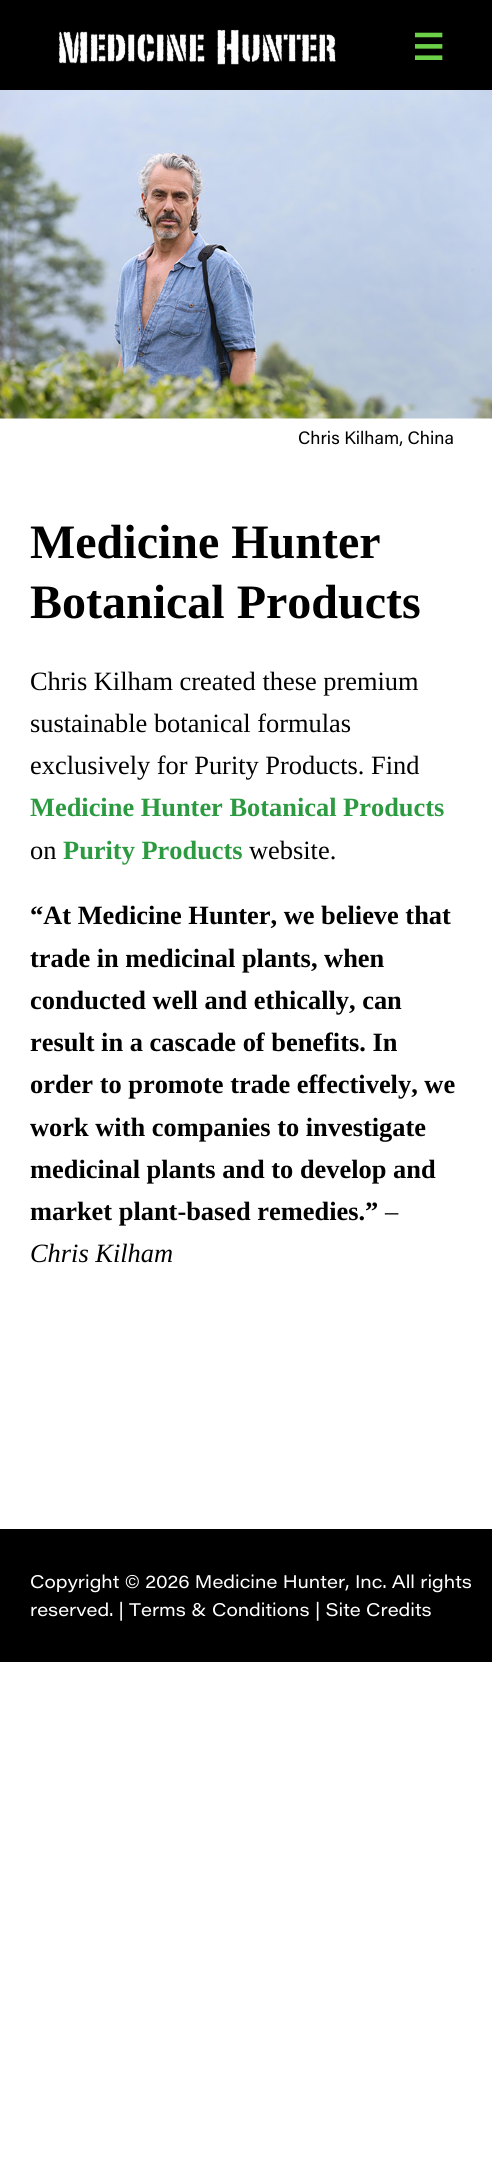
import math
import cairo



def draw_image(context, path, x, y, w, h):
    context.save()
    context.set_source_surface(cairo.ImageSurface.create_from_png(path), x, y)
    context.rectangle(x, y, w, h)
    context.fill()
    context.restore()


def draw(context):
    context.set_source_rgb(1, 1, 1)
    context.paint()
    context.set_source_rgb(0, 0, 0)
    context.rectangle(0, 0, 492, 90)
    context.fill()
    draw_image(context, "images/1.png", 59, 29, 277, 36)
    draw_image(context, "images/2.png", 0, 90, 492, 329)
    context.rectangle(0, 1529, 492, 133)
    context.fill()
    context.select_font_face("DejaVu Sans", cairo.FontSlant.NORMAL, cairo.FontWeight.BOLD)
    context.set_font_size(36)
    context.set_source_rgb(108 / 255, 209 / 255, 73 / 255)
    context.move_to(412, 60)
    context.show_text("☰")
    context.select_font_face("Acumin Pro")
    context.set_font_size(18)
    context.set_source_rgb(0, 0, 0)
    context.move_to(298, 444)
    context.show_text("Chris Kilham, China")
    context.select_font_face("Liberation Serif", cairo.FontSlant.NORMAL, cairo.FontWeight.BOLD)
    context.set_font_size(48)
    context.move_to(30, 558)
    context.show_text("Medicine Hunter")
    context.move_to(30, 618)
    context.show_text("Botanical Products")
    context.select_font_face("Liberation Serif")
    context.set_font_size(26.4)
    context.move_to(30, 690)
    context.show_text("Chris Kilham created these premium")
    context.move_to(30, 732)
    context.show_text("sustainable botanical formulas")
    context.move_to(30, 774)
    context.show_text("exclusively for Purity Products. Find")
    context.select_font_face("Liberation Serif", cairo.FontSlant.NORMAL, cairo.FontWeight.BOLD)
    context.set_source_rgb(43 / 255, 154 / 255, 64 / 255)
    context.move_to(30, 816)
    context.show_text("Medicine Hunter Botanical Products")
    context.select_font_face("Liberation Serif")
    context.set_source_rgb(0, 0, 0)
    context.move_to(30, 859)
    context.show_text("on")
    context.select_font_face("Liberation Serif", cairo.FontSlant.NORMAL, cairo.FontWeight.BOLD)
    context.set_source_rgb(43 / 255, 154 / 255, 64 / 255)
    context.move_to(63, 859)
    context.show_text("Purity Products")
    context.select_font_face("Liberation Serif")
    context.set_source_rgb(0, 0, 0)
    context.move_to(249, 859)
    context.show_text("website.")
    context.select_font_face("Liberation Serif", cairo.FontSlant.NORMAL, cairo.FontWeight.BOLD)
    context.move_to(30, 924)
    context.show_text("“At Medicine Hunter, we believe that")
    context.move_to(30, 967)
    context.show_text("trade in medicinal plants, when")
    context.move_to(30, 1009)
    context.show_text("conducted well and ethically, can")
    context.move_to(30, 1051)
    context.show_text("result in a cascade of benefits. In")
    context.move_to(30, 1093)
    context.show_text("order to promote trade effectively, we")
    context.move_to(30, 1136)
    context.show_text("work with companies to investigate")
    context.move_to(30, 1178)
    context.show_text("medicinal plants and to develop and")
    context.move_to(30, 1220)
    context.show_text("market plant-based remedies.”")
    context.select_font_face("Liberation Serif", cairo.FontSlant.ITALIC)
    context.move_to(385, 1220)
    context.show_text("–")
    context.move_to(30, 1262)
    context.show_text("Chris Kilham")
    context.select_font_face("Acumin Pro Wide")
    context.set_font_size(18)
    context.set_source_rgb(1, 1, 1)
    context.move_to(30, 1588)
    context.show_text("Copyright © 2026 Medicine Hunter, Inc. All rights")
    context.move_to(30, 1616)
    context.show_text("reserved. | Terms & Conditions | Site Credits")


surface = cairo.ImageSurface(cairo.Format.RGB24, 492, 2160)
context = cairo.Context(surface)
options = cairo.FontOptions()
options.set_hint_metrics(cairo.HintMetrics.OFF)
options.set_hint_style(cairo.HintStyle.NONE)
context.set_font_options(options)
context.set_miter_limit(4)
draw(context)
surface.write_to_png("out.png")
